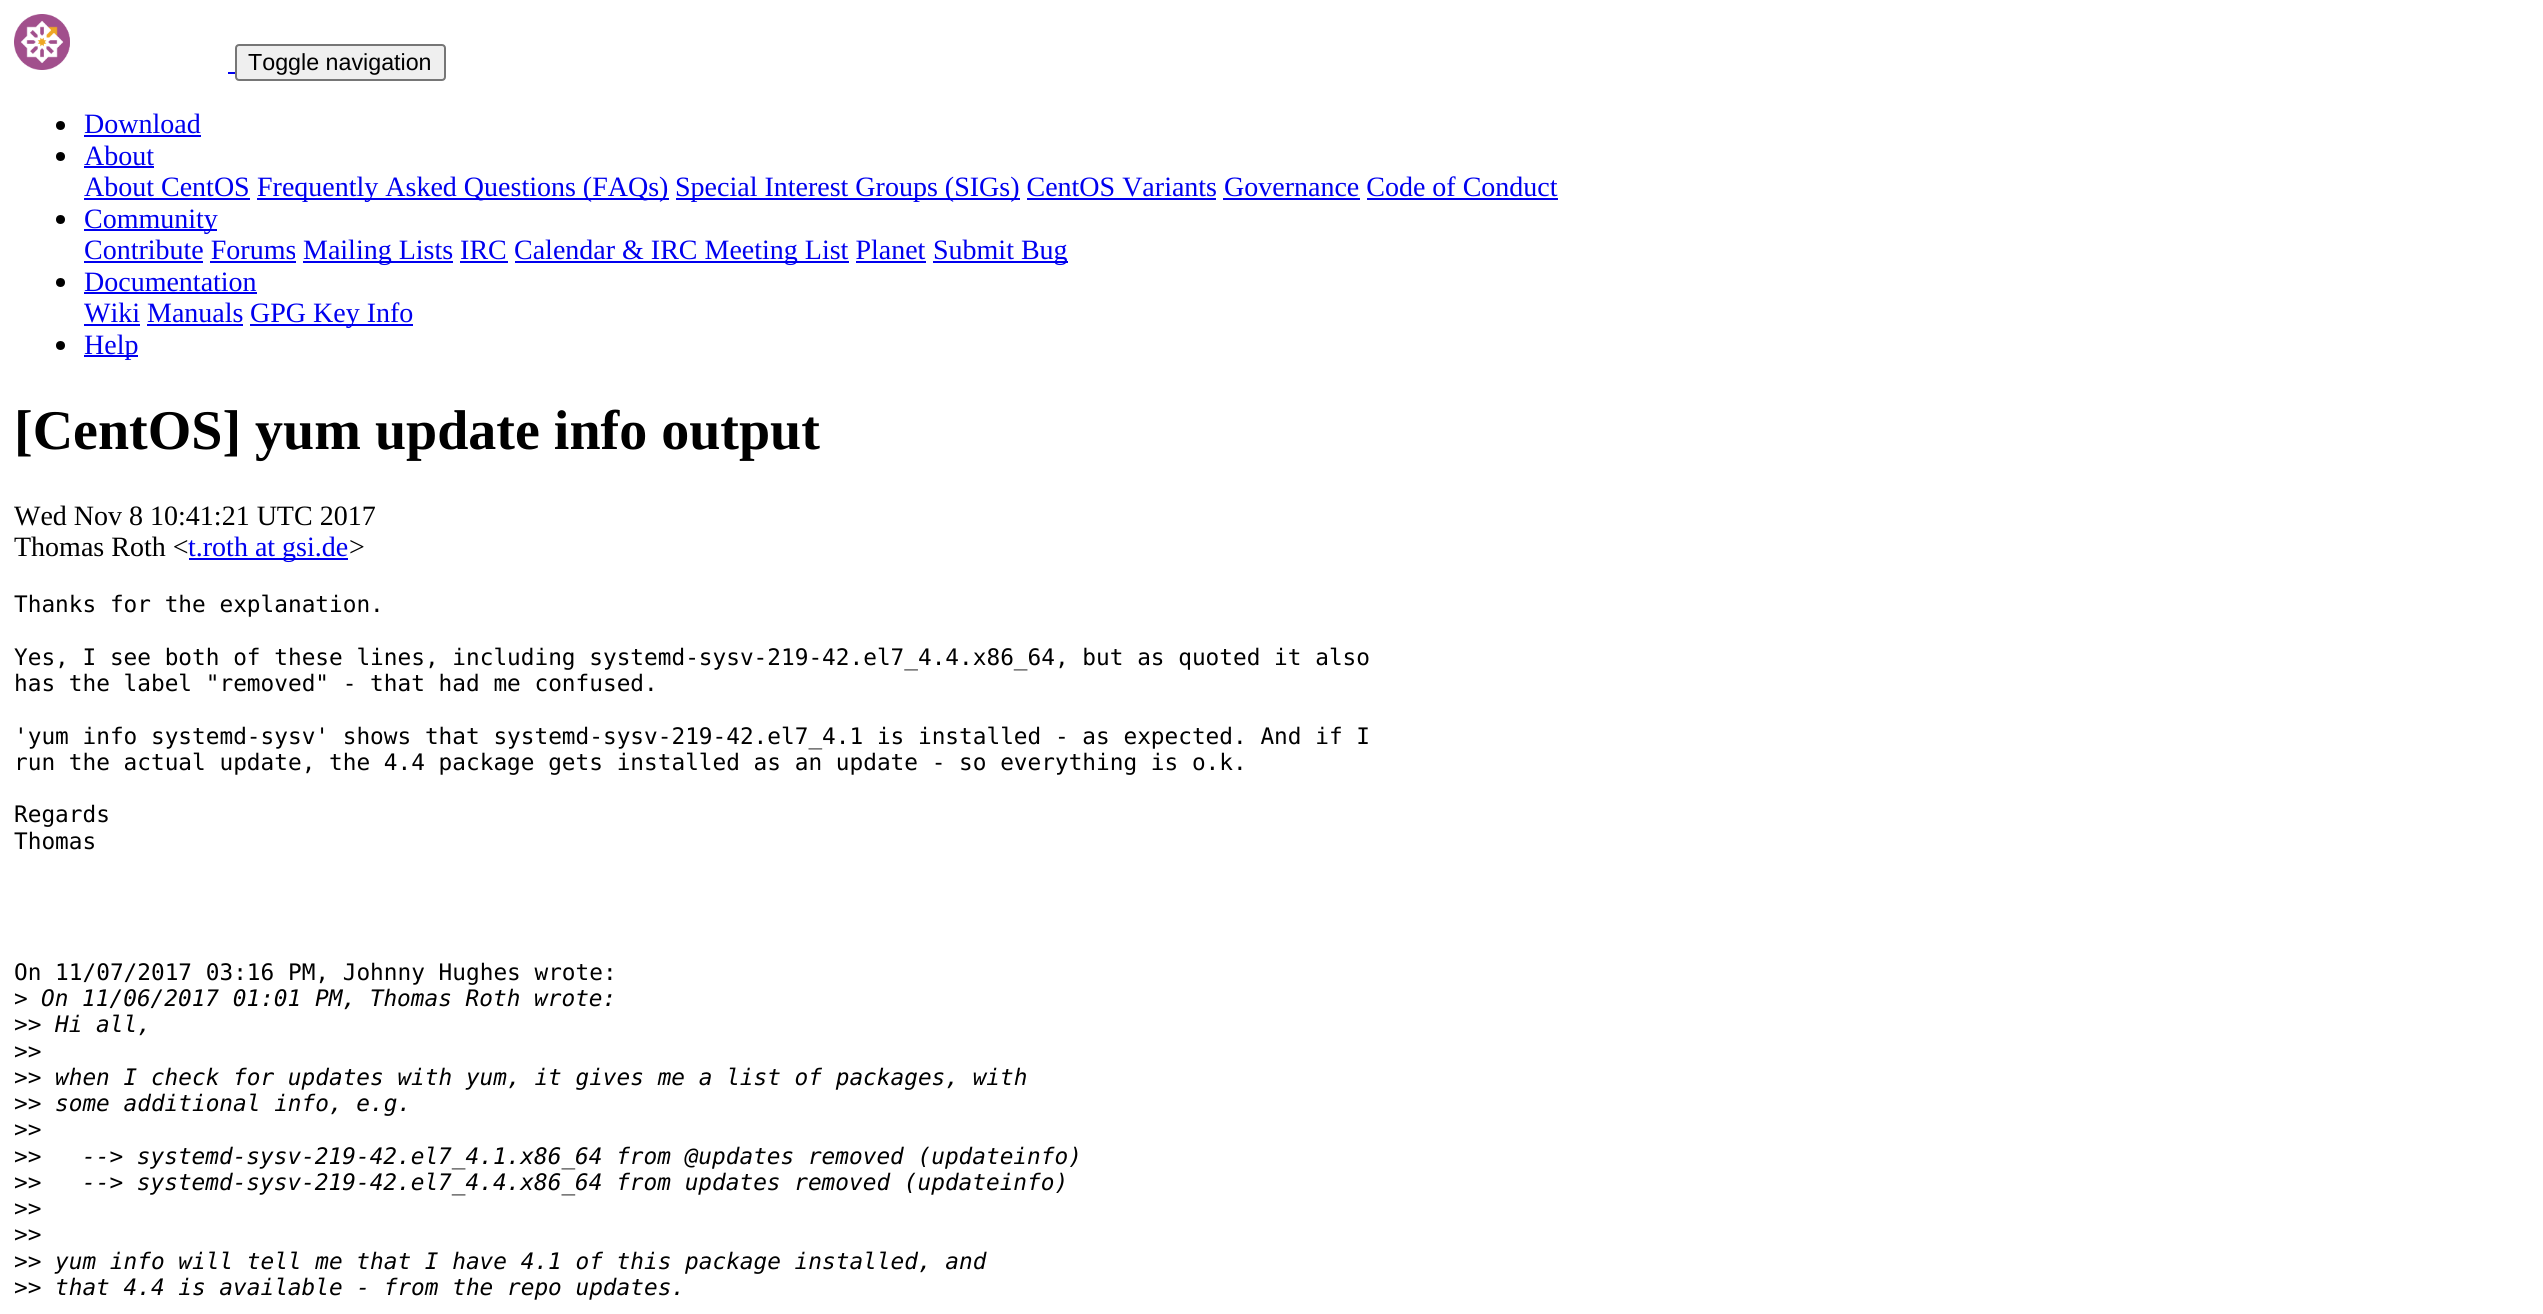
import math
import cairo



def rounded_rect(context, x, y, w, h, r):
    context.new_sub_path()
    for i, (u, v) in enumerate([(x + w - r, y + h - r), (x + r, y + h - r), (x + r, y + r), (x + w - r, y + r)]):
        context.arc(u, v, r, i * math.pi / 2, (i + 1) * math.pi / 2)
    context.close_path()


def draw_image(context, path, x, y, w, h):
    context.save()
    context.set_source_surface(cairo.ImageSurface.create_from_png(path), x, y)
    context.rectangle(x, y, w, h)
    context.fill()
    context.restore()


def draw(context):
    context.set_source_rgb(1, 1, 1)
    context.paint()
    draw_image(context, "images/1.png", 14, 14, 56, 56)
    context.set_source_rgb(0, 0, 238 / 255)
    context.rectangle(228, 72, 7, 2)
    context.fill()
    context.set_source_rgb(239 / 255, 239 / 255, 239 / 255)
    rounded_rect(context, 236, 45, 209, 35, 3)
    context.fill_preserve()
    context.set_source_rgb(118 / 255, 118 / 255, 118 / 255)
    context.stroke()
    context.set_source_rgb(0, 0, 0)
    context.arc(60.5, 125.5, 4.5, 0, 2 * math.pi)
    context.fill()
    context.set_source_rgb(0, 0, 238 / 255)
    context.rectangle(84, 135, 117, 2)
    context.fill()
    context.set_source_rgb(0, 0, 0)
    context.arc(60.5, 156.5, 4.5, 0, 2 * math.pi)
    context.fill()
    context.set_source_rgb(0, 0, 238 / 255)
    context.rectangle(84, 166, 70, 2)
    context.fill()
    context.rectangle(84, 198, 166, 2)
    context.fill()
    context.rectangle(257, 198, 412, 2)
    context.fill()
    context.rectangle(676, 198, 344, 2)
    context.fill()
    context.rectangle(1027, 198, 189, 2)
    context.fill()
    context.rectangle(1223, 198, 137, 2)
    context.fill()
    context.rectangle(1367, 198, 191, 2)
    context.fill()
    context.set_source_rgb(0, 0, 0)
    context.arc(60.5, 219.5, 4.5, 0, 2 * math.pi)
    context.fill()
    context.set_source_rgb(0, 0, 238 / 255)
    context.rectangle(84, 229, 133, 2)
    context.fill()
    context.rectangle(84, 261, 119, 2)
    context.fill()
    context.rectangle(303, 261, 150, 2)
    context.fill()
    context.rectangle(515, 261, 334, 2)
    context.fill()
    context.rectangle(933, 261, 135, 2)
    context.fill()
    context.rectangle(210, 261, 86, 2)
    context.fill()
    context.rectangle(460, 261, 48, 2)
    context.fill()
    context.rectangle(856, 261, 70, 2)
    context.fill()
    context.set_source_rgb(0, 0, 0)
    context.arc(60.5, 282.5, 4.5, 0, 2 * math.pi)
    context.fill()
    context.set_source_rgb(0, 0, 238 / 255)
    context.rectangle(84, 292, 173, 2)
    context.fill()
    context.rectangle(84, 324, 56, 2)
    context.fill()
    context.rectangle(250, 324, 163, 2)
    context.fill()
    context.rectangle(147, 324, 96, 2)
    context.fill()
    context.set_source_rgb(0, 0, 0)
    context.arc(60.5, 345.5, 4.5, 0, 2 * math.pi)
    context.fill()
    context.set_source_rgb(0, 0, 238 / 255)
    context.rectangle(84, 355, 54, 2)
    context.fill()
    context.rectangle(189, 558, 159, 2)
    context.fill()
    context.select_font_face("Liberation Sans")
    context.set_font_size(23.25)
    context.set_source_rgb(0, 0, 0)
    context.move_to(248, 70)
    context.show_text("Toggle navigation")
    context.select_font_face("Liberation Serif")
    context.set_font_size(28)
    context.set_source_rgb(0, 0, 238 / 255)
    context.move_to(84, 133)
    context.show_text("Download")
    context.move_to(84, 165)
    context.show_text("About")
    context.move_to(84, 196)
    context.show_text("About CentOS")
    context.move_to(257, 196)
    context.show_text("Frequently Asked Questions (FAQs)")
    context.move_to(675, 196)
    context.show_text("Special Interest Groups (SIGs) CentOS Variants Governance Code of Conduct")
    context.move_to(84, 228)
    context.show_text("Community")
    context.move_to(84, 259)
    context.show_text("Contribute Forums")
    context.move_to(303, 259)
    context.show_text("Mailing Lists IRC")
    context.move_to(514, 259)
    context.show_text("Calendar & IRC Meeting List Planet")
    context.move_to(933, 259)
    context.show_text("Submit Bug")
    context.move_to(84, 291)
    context.show_text("Documentation")
    context.move_to(84, 322)
    context.show_text("Wiki Manuals")
    context.move_to(250, 322)
    context.show_text("GPG Key Info")
    context.move_to(84, 354)
    context.show_text("Help")
    context.select_font_face("Liberation Serif", cairo.FontSlant.NORMAL, cairo.FontWeight.BOLD)
    context.set_font_size(56)
    context.set_source_rgb(0, 0, 0)
    context.move_to(14, 449)
    context.show_text("[CentOS] yum update info output")
    context.select_font_face("Liberation Serif")
    context.set_font_size(28)
    context.move_to(14, 525)
    context.show_text("Wed Nov 8 10:41:21 UTC 2017")
    context.move_to(14, 556)
    context.show_text("Thomas Roth <")
    context.set_source_rgb(0, 0, 238 / 255)
    context.move_to(188, 556)
    context.show_text("t.roth at gsi.de")
    context.set_source_rgb(0, 0, 0)
    context.move_to(349, 556)
    context.show_text(">")
    context.select_font_face("DejaVu Sans Mono")
    context.set_font_size(22.75)
    context.move_to(14, 612)
    context.show_text("Thanks for the explanation.")
    context.move_to(14, 665)
    context.show_text("Yes, I see both of these lines, including systemd-sysv-219-42.el7_4.4.x86_64, but as quoted it also")
    context.move_to(14, 691)
    context.show_text("has the label \"removed\" - that had me confused.")
    context.move_to(14, 744)
    context.show_text("'yum info systemd-sysv' shows that systemd-sysv-219-42.el7_4.1 is installed - as expected. And if I")
    context.move_to(14, 770)
    context.show_text("run the actual update, the 4.4 package gets installed as an update - so everything is o.k.")
    context.move_to(14, 822)
    context.show_text("Regards")
    context.move_to(14, 849)
    context.show_text("Thomas")
    context.move_to(14, 980)
    context.show_text("On 11/07/2017 03:16 PM, Johnny Hughes wrote:")
    context.move_to(14, 1006)
    context.show_text(">")
    context.select_font_face("DejaVu Sans Mono", cairo.FontSlant.ITALIC)
    context.move_to(41, 1006)
    context.show_text("On 11/06/2017 01:01 PM, Thomas Roth wrote:")
    context.select_font_face("DejaVu Sans Mono")
    context.move_to(14, 1032)
    context.show_text(">>")
    context.select_font_face("DejaVu Sans Mono", cairo.FontSlant.ITALIC)
    context.move_to(55, 1032)
    context.show_text("Hi all,")
    context.select_font_face("DejaVu Sans Mono")
    context.move_to(14, 1059)
    context.show_text(">>")
    context.move_to(14, 1085)
    context.show_text(">>")
    context.select_font_face("DejaVu Sans Mono", cairo.FontSlant.ITALIC)
    context.move_to(55, 1085)
    context.show_text("when I check for updates with yum, it gives me a list of packages, with")
    context.select_font_face("DejaVu Sans Mono")
    context.move_to(14, 1111)
    context.show_text(">>")
    context.select_font_face("DejaVu Sans Mono", cairo.FontSlant.ITALIC)
    context.move_to(55, 1111)
    context.show_text("some additional info, e.g.")
    context.select_font_face("DejaVu Sans Mono")
    context.move_to(14, 1137)
    context.show_text(">>")
    context.move_to(14, 1164)
    context.show_text(">>")
    context.select_font_face("DejaVu Sans Mono", cairo.FontSlant.ITALIC)
    context.move_to(82, 1164)
    context.show_text("--> systemd-sysv-219-42.el7_4.1.x86_64 from @updates removed (updateinfo)")
    context.select_font_face("DejaVu Sans Mono")
    context.move_to(14, 1190)
    context.show_text(">>")
    context.select_font_face("DejaVu Sans Mono", cairo.FontSlant.ITALIC)
    context.move_to(82, 1190)
    context.show_text("--> systemd-sysv-219-42.el7_4.4.x86_64 from updates removed (updateinfo)")
    context.select_font_face("DejaVu Sans Mono")
    context.move_to(14, 1216)
    context.show_text(">>")
    context.move_to(14, 1242)
    context.show_text(">>")
    context.move_to(14, 1269)
    context.show_text(">>")
    context.select_font_face("DejaVu Sans Mono", cairo.FontSlant.ITALIC)
    context.move_to(55, 1269)
    context.show_text("yum info will tell me that I have 4.1 of this package installed, and")
    context.select_font_face("DejaVu Sans Mono")
    context.move_to(14, 1295)
    context.show_text(">>")
    context.select_font_face("DejaVu Sans Mono", cairo.FontSlant.ITALIC)
    context.move_to(55, 1295)
    context.show_text("that 4.4 is available - from the repo updates.")


surface = cairo.ImageSurface(cairo.Format.RGB24, 2543, 1314)
context = cairo.Context(surface)
options = cairo.FontOptions()
options.set_hint_metrics(cairo.HintMetrics.OFF)
options.set_hint_style(cairo.HintStyle.NONE)
context.set_font_options(options)
context.set_miter_limit(4)
draw(context)
surface.write_to_png("out.png")
